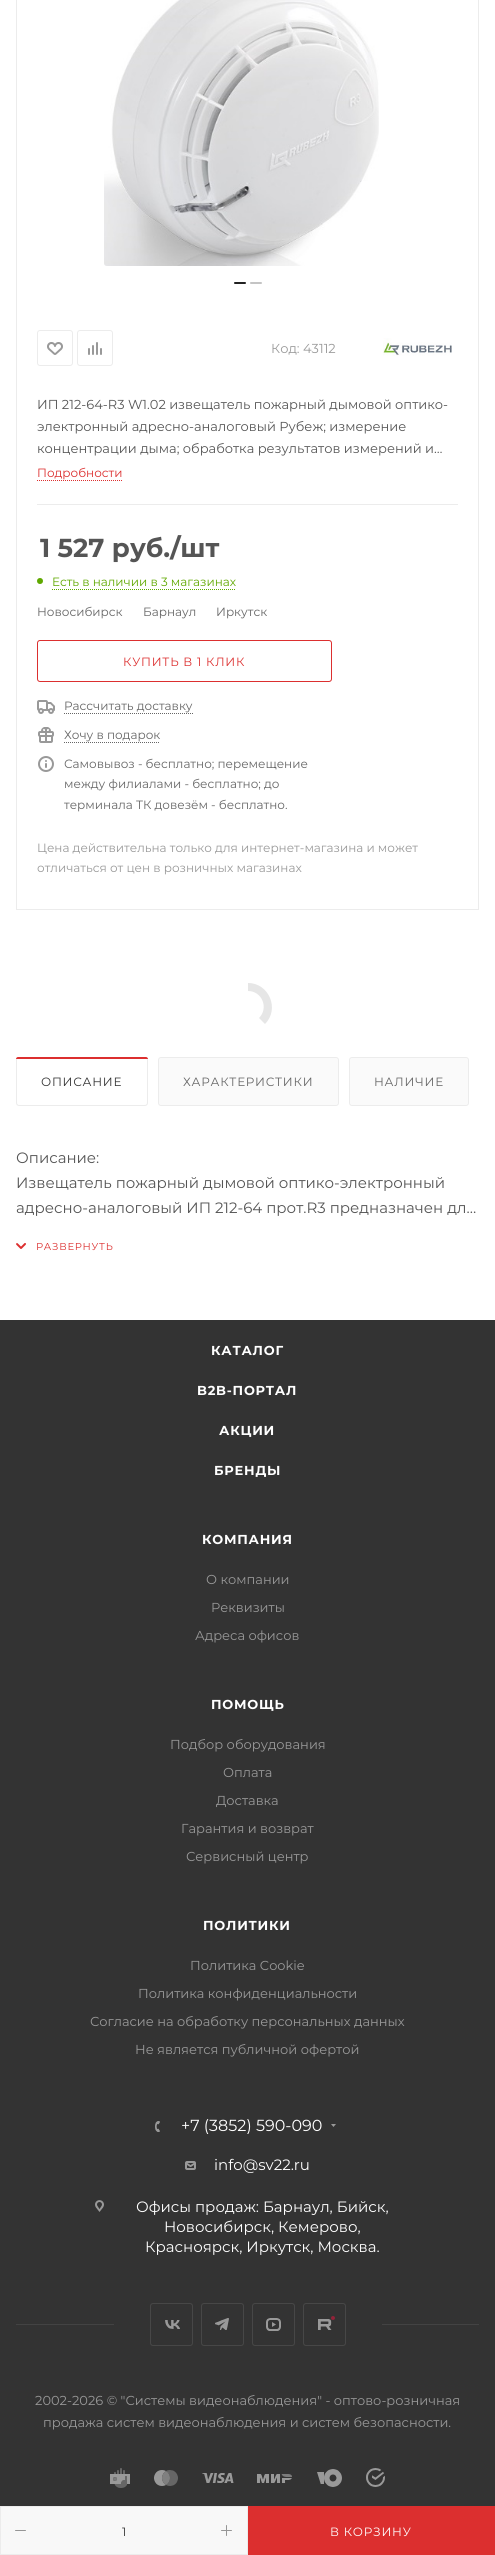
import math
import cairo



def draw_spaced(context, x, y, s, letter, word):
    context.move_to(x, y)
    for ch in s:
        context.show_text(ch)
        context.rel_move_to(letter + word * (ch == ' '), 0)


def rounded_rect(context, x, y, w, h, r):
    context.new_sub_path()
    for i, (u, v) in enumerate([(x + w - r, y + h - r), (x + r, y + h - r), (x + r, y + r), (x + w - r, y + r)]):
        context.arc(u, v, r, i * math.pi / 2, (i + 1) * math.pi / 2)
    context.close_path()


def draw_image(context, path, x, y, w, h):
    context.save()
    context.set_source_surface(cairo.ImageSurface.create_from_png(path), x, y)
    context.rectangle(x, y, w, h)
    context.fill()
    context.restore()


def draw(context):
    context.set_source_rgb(1, 1, 1)
    context.paint()
    context.rectangle(16.5, -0.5, 462, 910)
    context.set_source_rgb(236 / 255, 236 / 255, 236 / 255)
    context.set_line_width(1)
    context.stroke()
    draw_image(context, "images/1.png", 104, 0, 275, 266)
    context.set_source_rgb(34 / 255, 34 / 255, 34 / 255)
    rounded_rect(context, 234, 282, 12, 2, 1)
    context.fill()
    context.set_source_rgb(196 / 255, 196 / 255, 196 / 255)
    rounded_rect(context, 250, 282, 12, 2, 1)
    context.fill()
    rounded_rect(context, 37.5, 330.5, 35, 35, 2.5)
    context.set_source_rgb(236 / 255, 236 / 255, 236 / 255)
    context.stroke()
    draw_image(context, "images/2.png", 47, 342, 16, 13)
    rounded_rect(context, 77.5, 330.5, 35, 35, 2.5)
    context.stroke()
    draw_image(context, "images/3.png", 88, 342, 14, 13)
    draw_image(context, "images/4.png", 383, 338, 69, 18)
    context.rectangle(37, 504, 421, 1)
    context.fill()
    context.new_path()
    context.move_to(37, 480.5)
    context.line_to(123, 480.5)
    context.set_source_rgb(220 / 255, 47 / 255, 47 / 255)
    context.set_dash([1, 1])
    context.stroke()
    context.set_source_rgb(95 / 255, 168 / 255, 0)
    context.arc(40, 581, 3, 0, 2 * math.pi)
    context.fill()
    context.new_path()
    context.move_to(52, 589.5)
    context.line_to(150, 589.5)
    context.stroke()
    context.new_path()
    context.move_to(150, 589.5)
    context.line_to(236, 589.5)
    context.stroke()
    rounded_rect(context, 37.5, 640.5, 294, 41, 2.5)
    context.set_source_rgb(220 / 255, 47 / 255, 47 / 255)
    context.set_dash([])
    context.stroke()
    context.set_source_rgb(248 / 255, 248 / 255, 248 / 255)
    context.rectangle(0.5, 2506.5, 247, 48)
    context.fill_preserve()
    context.set_source_rgb(236 / 255, 236 / 255, 236 / 255)
    context.stroke()
    context.set_source_rgb(150 / 255, 150 / 255, 150 / 255)
    rounded_rect(context, 15, 2530, 11, 1, 0.5)
    context.fill()
    draw_image(context, "images/5.png", 221, 2525, 11, 11)
    context.set_source_rgb(220 / 255, 47 / 255, 47 / 255)
    context.rectangle(248, 2506, 247, 49)
    context.fill()
    draw_image(context, "images/6.png", 37, 700, 18, 14)
    context.new_path()
    context.move_to(64, 713.5)
    context.line_to(193, 713.5)
    context.set_source_rgb(102 / 255, 102 / 255, 102 / 255)
    context.set_dash([1, 1])
    context.stroke()
    draw_image(context, "images/7.png", 38, 727, 16, 16)
    context.new_path()
    context.move_to(64, 742.5)
    context.line_to(160, 742.5)
    context.stroke()
    draw_image(context, "images/8.png", 38, 756, 16, 16)
    context.set_source_rgb(230 / 255, 230 / 255, 230 / 255)
    context.new_path()
    context.move_to(248, 983)
    context.curve_to(269, 983, 280, 1009, 265, 1024)
    context.line_to(259, 1018)
    context.curve_to(269, 1008, 262, 991, 248, 991)
    context.close_path()
    context.fill()
    context.set_source_rgb(250 / 255, 250 / 255, 250 / 255)
    rounded_rect(context, 16.5, 1057.5, 131, 48, 2.5)
    context.fill_preserve()
    context.set_source_rgb(236 / 255, 236 / 255, 236 / 255)
    context.set_dash([])
    context.stroke()
    context.set_source_rgb(1, 1, 1)
    rounded_rect(context, 17, 1058, 130, 47, 3)
    context.fill()
    context.set_source_rgb(220 / 255, 47 / 255, 47 / 255)
    context.new_path()
    context.move_to(18, 1057)
    context.line_to(146, 1057)
    context.curve_to(147, 1057, 148, 1058, 148, 1059)
    context.line_to(16, 1059)
    context.curve_to(16, 1058, 17, 1057, 18, 1057)
    context.close_path()
    context.fill()
    context.set_source_rgb(250 / 255, 250 / 255, 250 / 255)
    rounded_rect(context, 158.5, 1057.5, 180, 48, 2.5)
    context.fill_preserve()
    context.set_source_rgb(236 / 255, 236 / 255, 236 / 255)
    context.stroke()
    context.set_source_rgb(250 / 255, 250 / 255, 250 / 255)
    rounded_rect(context, 349.5, 1057.5, 119, 48, 2.5)
    context.fill_preserve()
    context.set_source_rgb(236 / 255, 236 / 255, 236 / 255)
    context.stroke()
    draw_image(context, "images/9.png", 16, 1243, 10, 6)
    context.set_source_rgb(51 / 255, 51 / 255, 51 / 255)
    context.rectangle(0, 1320, 495, 1186)
    context.fill()
    draw_image(context, "images/10.png", 155, 2121, 5, 11)
    draw_image(context, "images/11.png", 331, 2124, 5, 3)
    draw_image(context, "images/12.png", 185, 2161, 11, 9)
    draw_image(context, "images/13.png", 95, 2200, 9, 12)
    context.set_source_rgb(67 / 255, 67 / 255, 67 / 255)
    context.rectangle(16, 2324, 463, 1)
    context.fill()
    context.set_source_rgb(51 / 255, 51 / 255, 51 / 255)
    context.rectangle(114, 2324, 268, 1)
    context.fill()
    draw_image(context, "images/14.png", 165, 2320, 15, 9)
    rounded_rect(context, 150.5, 2303.5, 42, 42, 2.5)
    context.set_source_rgb(71 / 255, 71 / 255, 71 / 255)
    context.stroke()
    draw_image(context, "images/15.png", 215, 2318, 14, 12)
    rounded_rect(context, 201.5, 2303.5, 42, 42, 2.5)
    context.stroke()
    draw_image(context, "images/16.png", 266, 2318, 15, 13)
    rounded_rect(context, 252.5, 2303.5, 42, 42, 2.5)
    context.stroke()
    draw_image(context, "images/17.png", 318, 2316, 17, 14)
    rounded_rect(context, 303.5, 2303.5, 42, 42, 2.5)
    context.stroke()
    draw_image(context, "images/18.png", 110, 2468, 20, 20)
    draw_image(context, "images/19.png", 154, 2470, 24, 16)
    draw_image(context, "images/20.png", 202, 2473, 32, 10)
    draw_image(context, "images/21.png", 257, 2474, 35, 9)
    draw_image(context, "images/22.png", 317, 2469, 25, 18)
    draw_image(context, "images/23.png", 366, 2468, 19, 19)
    context.select_font_face("Montserrat")
    context.set_font_size(13)
    context.set_source_rgb(153 / 255, 153 / 255, 153 / 255)
    context.move_to(271, 353)
    context.show_text("Код: 43112")
    context.set_source_rgb(85 / 255, 85 / 255, 85 / 255)
    context.move_to(37, 409)
    context.show_text("ИП 212-64-R3 W1.02 извещатель пожарный дымовой оптико-")
    context.move_to(37, 431)
    context.show_text("электронный адресно-аналоговый Рубеж; измерение")
    context.move_to(37, 453)
    context.show_text("концентрации дыма; обработка результатов измерений и…")
    context.set_font_size(12)
    context.set_source_rgb(220 / 255, 47 / 255, 47 / 255)
    context.move_to(37, 477)
    context.show_text("Подробности")
    context.select_font_face("Montserrat", cairo.FontSlant.NORMAL, cairo.FontWeight.BOLD)
    context.set_font_size(26)
    context.set_source_rgb(85 / 255, 85 / 255, 85 / 255)
    context.move_to(40, 557)
    context.show_text("1 527 руб./шт")
    context.select_font_face("Montserrat")
    context.set_font_size(12)
    context.set_source_rgb(95 / 255, 168 / 255, 0)
    context.move_to(52, 586)
    context.show_text("Есть в наличии в 3 магазинах")
    context.set_source_rgb(102 / 255, 102 / 255, 102 / 255)
    context.move_to(37, 616)
    context.show_text("Новосибирск")
    context.move_to(143, 616)
    context.show_text("Барнаул")
    context.move_to(216, 616)
    context.show_text("Иркутск")
    context.set_source_rgb(220 / 255, 47 / 255, 47 / 255)
    draw_spaced(context, 123, 666, "КУПИТЬ В 1 КЛИК", 0.75, 0)
    context.set_source_rgb(51 / 255, 51 / 255, 51 / 255)
    context.move_to(122, 2536)
    context.show_text("1")
    context.set_source_rgb(1, 1, 1)
    draw_spaced(context, 330, 2536, "В КОРЗИНУ", 0.75, 0)
    context.set_source_rgb(102 / 255, 102 / 255, 102 / 255)
    context.move_to(64, 710)
    context.show_text("Рассчитать доставку")
    context.move_to(64, 739)
    context.show_text("Хочу в подарок")
    context.move_to(64, 768)
    context.show_text("Самовывоз - бесплатно; перемещение")
    context.move_to(64, 788)
    context.show_text("между филиалами - бесплатно; до")
    context.move_to(64, 809)
    context.show_text("терминала ТК довезём - бесплатно.")
    context.set_source_rgb(153 / 255, 153 / 255, 153 / 255)
    context.move_to(37, 852)
    context.show_text("Цена действительна только для интернет-магазина и может")
    context.move_to(37, 872)
    context.show_text("отличаться от цен в розничных магазинах")
    context.set_source_rgb(51 / 255, 51 / 255, 51 / 255)
    draw_spaced(context, 41, 1086, "ОПИСАНИЕ", 0.75, 0)
    context.set_source_rgb(102 / 255, 102 / 255, 102 / 255)
    draw_spaced(context, 183, 1086, "ХАРАКТЕРИСТИКИ", 0.75, 0)
    draw_spaced(context, 374, 1086, "НАЛИЧИЕ", 0.75, 0)
    context.set_font_size(15)
    context.set_source_rgb(85 / 255, 85 / 255, 85 / 255)
    context.move_to(16, 1163)
    context.show_text("Описание:")
    context.move_to(16, 1188)
    context.show_text("Извещатель пожарный дымовой оптико-электронный")
    context.move_to(16, 1213)
    context.show_text("адресно-аналоговый ИП 212-64 прот.R3 предназначен дл…")
    context.set_font_size(10)
    context.set_source_rgb(220 / 255, 47 / 255, 47 / 255)
    draw_spaced(context, 36, 1250, "РАЗВЕРНУТЬ", 0.75, 0)
    context.select_font_face("Montserrat", cairo.FontSlant.NORMAL, cairo.FontWeight.BOLD)
    context.set_font_size(13)
    context.set_source_rgb(1, 1, 1)
    draw_spaced(context, 211, 1355, "КАТАЛОГ", 0.75, 0)
    draw_spaced(context, 197, 1395, "B2B-ПОРТАЛ", 0.75, 0)
    draw_spaced(context, 219, 1435, "АКЦИИ", 0.75, 0)
    draw_spaced(context, 214, 1475, "БРЕНДЫ", 0.75, 0)
    draw_spaced(context, 202, 1544, "КОМПАНИЯ", 0.75, 0)
    context.select_font_face("Montserrat")
    context.set_source_rgb(153 / 255, 153 / 255, 153 / 255)
    context.move_to(206, 1584)
    context.show_text("О компании")
    context.move_to(211, 1612)
    context.show_text("Реквизиты")
    context.move_to(195, 1640)
    context.show_text("Адреса офисов")
    context.select_font_face("Montserrat", cairo.FontSlant.NORMAL, cairo.FontWeight.BOLD)
    context.set_source_rgb(1, 1, 1)
    draw_spaced(context, 211, 1709, "ПОМОЩЬ", 0.75, 0)
    context.select_font_face("Montserrat")
    context.set_source_rgb(153 / 255, 153 / 255, 153 / 255)
    context.move_to(170, 1749)
    context.show_text("Подбор оборудования")
    context.move_to(223, 1777)
    context.show_text("Оплата")
    context.move_to(216, 1805)
    context.show_text("Доставка")
    context.move_to(181, 1833)
    context.show_text("Гарантия и возврат")
    context.move_to(186, 1861)
    context.show_text("Сервисный центр")
    context.select_font_face("Montserrat", cairo.FontSlant.NORMAL, cairo.FontWeight.BOLD)
    context.set_source_rgb(1, 1, 1)
    draw_spaced(context, 203, 1930, "ПОЛИТИКИ", 0.75, 0)
    context.select_font_face("Montserrat")
    context.set_source_rgb(153 / 255, 153 / 255, 153 / 255)
    context.move_to(190, 1970)
    context.show_text("Политика Cookie")
    context.move_to(138, 1998)
    context.show_text("Политика конфиденциальности")
    context.move_to(90, 2026)
    context.show_text("Согласие на обработку персональных данных")
    context.move_to(135, 2054)
    context.show_text("Не является публичной офертой")
    context.save()
    context.rectangle(152, 2118, 184, 16)
    context.clip()
    context.set_font_size(16)
    context.set_source_rgb(1, 1, 1)
    context.move_to(181, 2131)
    context.show_text("+7 (3852) 590-090")
    context.restore()
    context.set_font_size(15)
    context.set_source_rgb(1, 1, 1)
    context.move_to(214, 2170)
    context.show_text("info@sv22.ru")
    context.move_to(136, 2212)
    context.show_text("Офисы продаж: Барнаул, Бийск,")
    context.move_to(164, 2232)
    context.show_text("Новосибирск, Кемерово,")
    context.move_to(145, 2252)
    context.show_text("Красноярск, Иркутск, Москва.")
    context.set_font_size(13)
    context.set_source_rgb(153 / 255, 153 / 255, 153 / 255)
    context.move_to(35, 2405)
    context.show_text("2002-2026 © \"Системы видеонаблюдения\" - оптово-розничная")
    context.move_to(43, 2427)
    context.show_text("продажа систем видеонаблюдения и систем безопасности.")


surface = cairo.ImageSurface(cairo.Format.RGB24, 495, 2555)
context = cairo.Context(surface)
options = cairo.FontOptions()
options.set_hint_metrics(cairo.HintMetrics.OFF)
options.set_hint_style(cairo.HintStyle.NONE)
context.set_font_options(options)
context.set_miter_limit(4)
draw(context)
surface.write_to_png("out.png")
